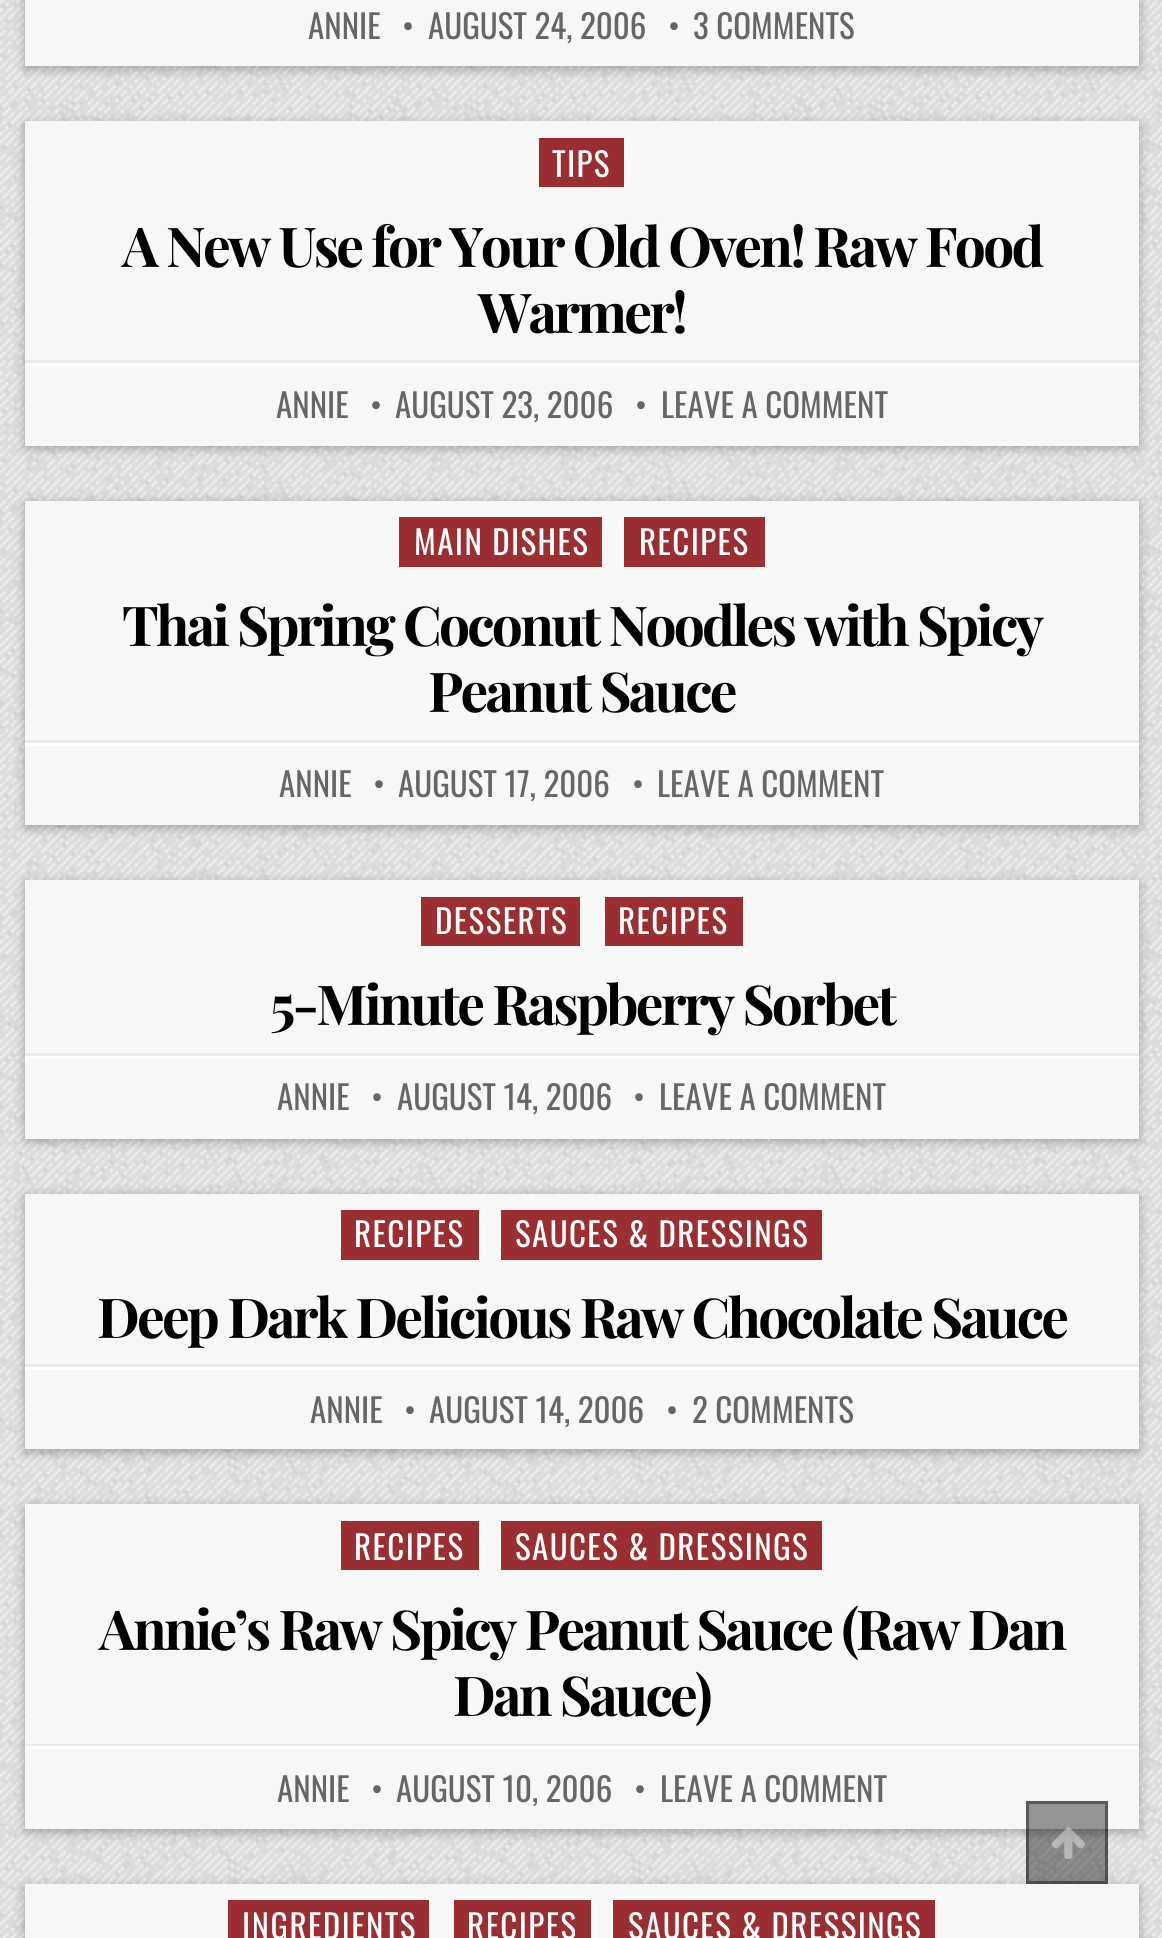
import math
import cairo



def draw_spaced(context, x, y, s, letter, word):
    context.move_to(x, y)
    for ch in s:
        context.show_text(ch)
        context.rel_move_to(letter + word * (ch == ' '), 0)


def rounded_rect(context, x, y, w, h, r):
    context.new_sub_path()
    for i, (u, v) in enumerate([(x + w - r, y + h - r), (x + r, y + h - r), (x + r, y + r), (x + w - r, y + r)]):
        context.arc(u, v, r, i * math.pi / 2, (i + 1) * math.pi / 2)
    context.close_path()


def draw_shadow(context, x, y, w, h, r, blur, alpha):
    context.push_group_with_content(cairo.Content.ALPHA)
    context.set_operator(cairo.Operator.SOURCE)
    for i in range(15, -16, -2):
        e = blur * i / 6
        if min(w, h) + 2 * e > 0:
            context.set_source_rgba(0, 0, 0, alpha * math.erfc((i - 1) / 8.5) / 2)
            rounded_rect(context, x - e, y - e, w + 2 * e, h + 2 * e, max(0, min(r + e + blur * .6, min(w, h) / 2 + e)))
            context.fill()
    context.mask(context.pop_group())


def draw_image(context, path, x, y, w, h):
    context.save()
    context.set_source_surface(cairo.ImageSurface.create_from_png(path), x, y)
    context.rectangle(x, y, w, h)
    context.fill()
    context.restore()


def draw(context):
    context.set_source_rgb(1, 1, 1)
    context.paint()
    draw_image(context, "images/1.png", 0, 0, 1162, 1938)
    context.set_source_rgb(0, 0, 0)
    draw_shadow(context, 25, -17, 1114, 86, 0, 5.5, 0.3)
    context.set_source_rgb(247 / 255, 247 / 255, 247 / 255)
    context.rectangle(25, 0, 1114, 66)
    context.fill()
    context.set_source_rgb(0, 0, 0)
    draw_shadow(context, 25, 124, 1114, 324, 0, 5.5, 0.3)
    context.set_source_rgb(247 / 255, 247 / 255, 247 / 255)
    context.rectangle(25, 121, 1114, 325)
    context.fill()
    context.set_source_rgb(154 / 255, 46 / 255, 49 / 255)
    context.rectangle(539, 138, 85, 49)
    context.fill()
    context.set_source_rgb(234 / 255, 234 / 255, 234 / 255)
    context.rectangle(25, 360, 1114, 3)
    context.fill()
    context.set_source_rgb(1, 1, 1)
    context.rectangle(25, 363, 1114, 3)
    context.fill()
    context.set_source_rgb(0, 0, 0)
    draw_shadow(context, 25, 503, 1114, 325, 0, 5.5, 0.3)
    context.set_source_rgb(247 / 255, 247 / 255, 247 / 255)
    context.rectangle(25, 501, 1114, 324)
    context.fill()
    context.set_source_rgb(154 / 255, 46 / 255, 49 / 255)
    context.rectangle(399, 517, 203, 50)
    context.fill()
    context.rectangle(624, 517, 141, 50)
    context.fill()
    context.set_source_rgb(234 / 255, 234 / 255, 234 / 255)
    context.rectangle(25, 740, 1114, 3)
    context.fill()
    context.set_source_rgb(1, 1, 1)
    context.rectangle(25, 743, 1114, 3)
    context.fill()
    context.set_source_rgb(0, 0, 0)
    draw_shadow(context, 25, 883, 1114, 258, 0, 5.5, 0.3)
    context.set_source_rgb(247 / 255, 247 / 255, 247 / 255)
    context.rectangle(25, 880, 1114, 259)
    context.fill()
    context.set_source_rgb(154 / 255, 46 / 255, 49 / 255)
    context.rectangle(421, 897, 159, 49)
    context.fill()
    context.rectangle(605, 897, 138, 49)
    context.fill()
    context.set_source_rgb(234 / 255, 234 / 255, 234 / 255)
    context.rectangle(25, 1053, 1114, 3)
    context.fill()
    context.set_source_rgb(1, 1, 1)
    context.rectangle(25, 1056, 1114, 3)
    context.fill()
    context.set_source_rgb(0, 0, 0)
    draw_shadow(context, 25, 1196, 1114, 256, 0, 5.5, 0.3)
    context.set_source_rgb(247 / 255, 247 / 255, 247 / 255)
    context.rectangle(25, 1194, 1114, 255)
    context.fill()
    context.set_source_rgb(154 / 255, 46 / 255, 49 / 255)
    context.rectangle(341, 1210, 138, 50)
    context.fill()
    context.rectangle(501, 1210, 321, 50)
    context.fill()
    context.set_source_rgb(234 / 255, 234 / 255, 234 / 255)
    context.rectangle(25, 1364, 1114, 3)
    context.fill()
    context.set_source_rgb(1, 1, 1)
    context.rectangle(25, 1367, 1114, 3)
    context.fill()
    context.set_source_rgb(0, 0, 0)
    draw_shadow(context, 25, 1507, 1114, 325, 0, 5.5, 0.3)
    context.set_source_rgb(247 / 255, 247 / 255, 247 / 255)
    context.rectangle(25, 1504, 1114, 325)
    context.fill()
    context.set_source_rgb(154 / 255, 46 / 255, 49 / 255)
    context.rectangle(341, 1521, 138, 49)
    context.fill()
    context.rectangle(501, 1521, 321, 49)
    context.fill()
    context.set_source_rgb(234 / 255, 234 / 255, 234 / 255)
    context.rectangle(25, 1744, 1114, 2)
    context.fill()
    context.set_source_rgb(1, 1, 1)
    context.rectangle(25, 1746, 1114, 3)
    context.fill()
    context.set_source_rgb(0, 0, 0)
    draw_shadow(context, 25, 1887, 1114, 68, 0, 5.5, 0.3)
    context.set_source_rgb(247 / 255, 247 / 255, 247 / 255)
    context.rectangle(25, 1884, 1114, 54)
    context.fill()
    context.set_source_rgb(154 / 255, 46 / 255, 49 / 255)
    context.rectangle(228, 1900, 201, 38)
    context.fill()
    context.rectangle(454, 1900, 137, 38)
    context.fill()
    context.rectangle(613, 1900, 322, 38)
    context.fill()
    context.set_source_rgba(0, 0, 0, 0.4)
    context.rectangle(1026, 1801, 82, 83)
    context.fill()
    context.rectangle(1027.5, 1802.5, 79, 80)
    context.set_line_width(3)
    context.stroke()
    draw_image(context, "images/2.png", 1051, 1827, 34, 32)
    context.select_font_face("Oswald")
    context.set_font_size(33)
    context.set_source_rgb(102 / 255, 102 / 255, 102 / 255)
    context.move_to(308, 39)
    context.show_text("ANNIE")
    context.move_to(402, 39)
    context.show_text("•")
    context.move_to(428, 39)
    context.show_text("AUGUST 24, 2006")
    context.move_to(668, 39)
    context.show_text("•")
    context.move_to(693, 39)
    context.show_text("3 COMMENTS")
    context.set_source_rgb(1, 1, 1)
    draw_spaced(context, 552, 177, "TIPS", 1.4, 0)
    context.select_font_face("Playfair Display", cairo.FontSlant.NORMAL, cairo.FontWeight.BOLD)
    context.set_font_size(55)
    context.set_source_rgb(0, 0, 0)
    draw_spaced(context, 122, 267, "A New Use for Your Old Oven! Raw Food", -2.75, 0)
    draw_spaced(context, 478, 333, "Warmer!", -2.75, 0)
    context.select_font_face("Oswald")
    context.set_font_size(33)
    context.set_source_rgb(102 / 255, 102 / 255, 102 / 255)
    context.move_to(276, 418)
    context.show_text("ANNIE")
    context.move_to(370, 418)
    context.show_text("•")
    context.move_to(395, 418)
    context.show_text("AUGUST 23, 2006")
    context.move_to(635, 418)
    context.show_text("•")
    context.move_to(661, 418)
    context.show_text("LEAVE A COMMENT")
    context.set_source_rgb(1, 1, 1)
    draw_spaced(context, 414, 555, "MAIN DISHES", 1.4, 0)
    draw_spaced(context, 639, 555, "RECIPES", 1.4, 0)
    context.select_font_face("Playfair Display", cairo.FontSlant.NORMAL, cairo.FontWeight.BOLD)
    context.set_font_size(55)
    context.set_source_rgb(0, 0, 0)
    draw_spaced(context, 122, 646, "Thai Spring Coconut Noodles with Spicy", -2.75, 0)
    draw_spaced(context, 428, 712, "Peanut Sauce", -2.75, 0)
    context.select_font_face("Oswald")
    context.set_font_size(33)
    context.set_source_rgb(102 / 255, 102 / 255, 102 / 255)
    context.move_to(279, 797)
    context.show_text("ANNIE")
    context.move_to(373, 797)
    context.show_text("•")
    context.move_to(398, 797)
    context.show_text("AUGUST 17, 2006")
    context.move_to(632, 797)
    context.show_text("•")
    context.move_to(657, 797)
    context.show_text("LEAVE A COMMENT")
    context.set_source_rgb(1, 1, 1)
    draw_spaced(context, 435, 934, "DESSERTS", 1.4, 0)
    draw_spaced(context, 618, 934, "RECIPES", 1.4, 0)
    context.select_font_face("Playfair Display", cairo.FontSlant.NORMAL, cairo.FontWeight.BOLD)
    context.set_font_size(55)
    context.set_source_rgb(0, 0, 0)
    draw_spaced(context, 270, 1025, "5-Minute Raspberry Sorbet", -2.75, 0)
    context.select_font_face("Oswald")
    context.set_font_size(33)
    context.set_source_rgb(102 / 255, 102 / 255, 102 / 255)
    context.move_to(277, 1110)
    context.show_text("ANNIE")
    context.move_to(371, 1110)
    context.show_text("•")
    context.move_to(397, 1110)
    context.show_text("AUGUST 14, 2006")
    context.move_to(633, 1110)
    context.show_text("•")
    context.move_to(659, 1110)
    context.show_text("LEAVE A COMMENT")
    context.set_source_rgb(1, 1, 1)
    draw_spaced(context, 354, 1247, "RECIPES", 1.4, 0)
    draw_spaced(context, 515, 1247, "SAUCES & DRESSINGS", 1.4, 0)
    context.select_font_face("Playfair Display", cairo.FontSlant.NORMAL, cairo.FontWeight.BOLD)
    context.set_font_size(55)
    context.set_source_rgb(0, 0, 0)
    draw_spaced(context, 97, 1338, "Deep Dark Delicious Raw Chocolate Sauce", -2.75, 0)
    context.select_font_face("Oswald")
    context.set_font_size(33)
    context.set_source_rgb(102 / 255, 102 / 255, 102 / 255)
    context.move_to(310, 1423)
    context.show_text("ANNIE")
    context.move_to(404, 1423)
    context.show_text("•")
    context.move_to(429, 1423)
    context.show_text("AUGUST 14, 2006")
    context.move_to(666, 1423)
    context.show_text("•")
    context.move_to(692, 1423)
    context.show_text("2 COMMENTS")
    context.set_source_rgb(1, 1, 1)
    draw_spaced(context, 354, 1560, "RECIPES", 1.4, 0)
    draw_spaced(context, 515, 1560, "SAUCES & DRESSINGS", 1.4, 0)
    context.select_font_face("Playfair Display", cairo.FontSlant.NORMAL, cairo.FontWeight.BOLD)
    context.set_font_size(55)
    context.set_source_rgb(0, 0, 0)
    draw_spaced(context, 99, 1650, "Annie’s Raw Spicy Peanut Sauce (Raw Dan", -2.75, 0)
    draw_spaced(context, 453, 1716, "Dan Sauce)", -2.75, 0)
    context.select_font_face("Oswald")
    context.set_font_size(33)
    context.set_source_rgb(102 / 255, 102 / 255, 102 / 255)
    context.move_to(277, 1802)
    context.show_text("ANNIE")
    context.move_to(371, 1802)
    context.show_text("•")
    context.move_to(396, 1802)
    context.show_text("AUGUST 10, 2006")
    context.move_to(634, 1802)
    context.show_text("•")
    context.move_to(660, 1802)
    context.show_text("LEAVE A COMMENT")
    context.set_source_rgb(1, 1, 1)
    draw_spaced(context, 242, 1939, "INGREDIENTS", 1.4, 0)
    draw_spaced(context, 467, 1939, "RECIPES", 1.4, 0)
    draw_spaced(context, 628, 1939, "SAUCES & DRESSINGS", 1.4, 0)


surface = cairo.ImageSurface(cairo.Format.RGB24, 1162, 1938)
context = cairo.Context(surface)
options = cairo.FontOptions()
options.set_hint_metrics(cairo.HintMetrics.OFF)
options.set_hint_style(cairo.HintStyle.NONE)
context.set_font_options(options)
context.set_miter_limit(4)
draw(context)
surface.write_to_png("out.png")
